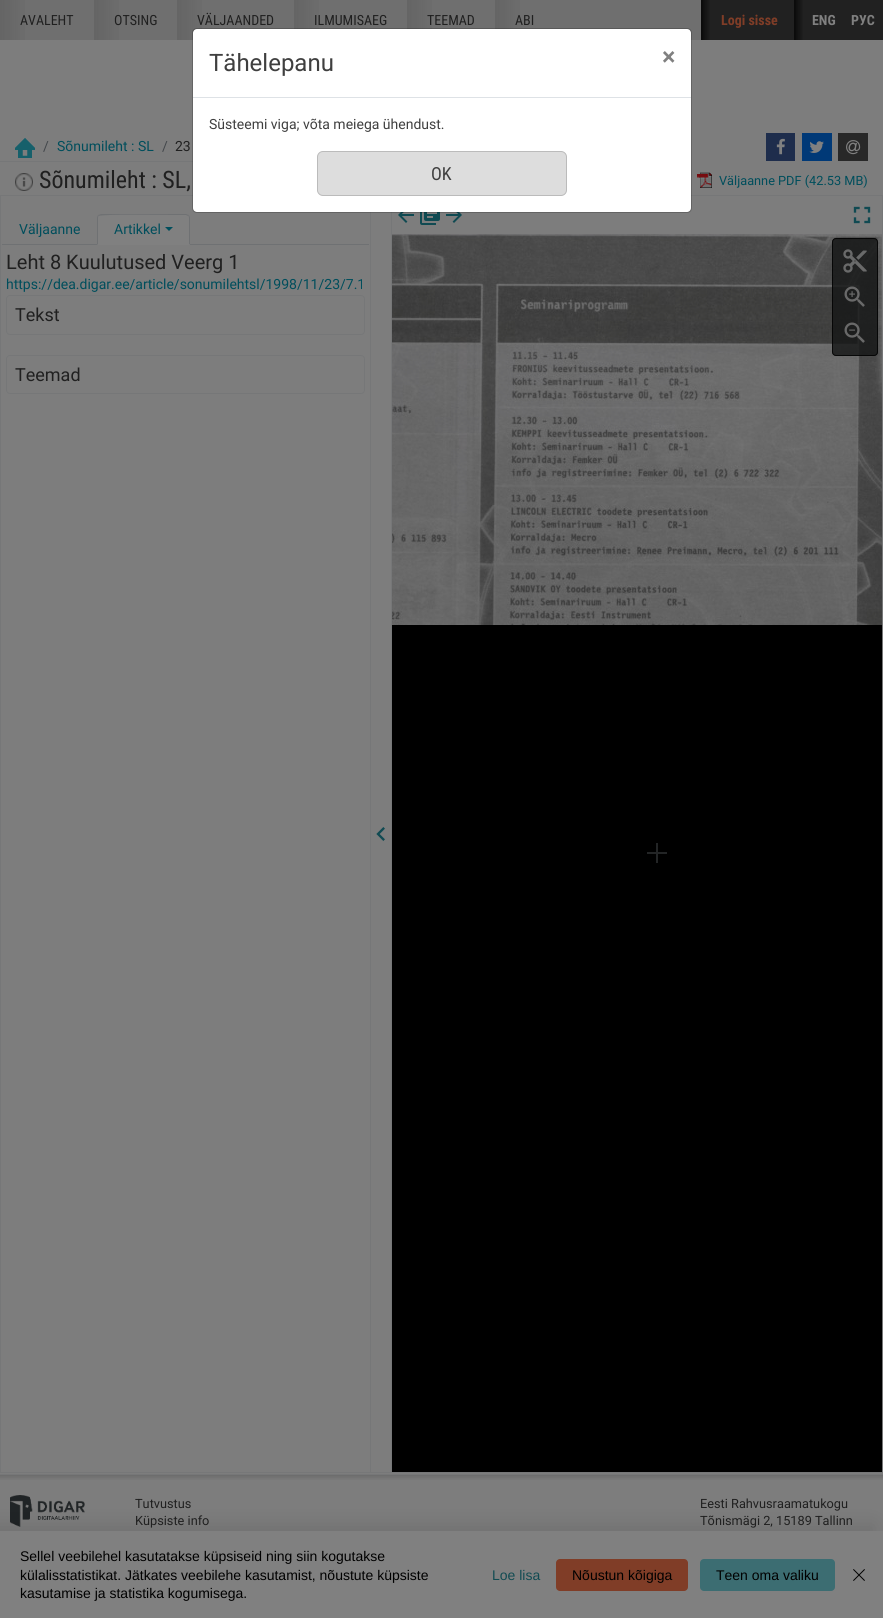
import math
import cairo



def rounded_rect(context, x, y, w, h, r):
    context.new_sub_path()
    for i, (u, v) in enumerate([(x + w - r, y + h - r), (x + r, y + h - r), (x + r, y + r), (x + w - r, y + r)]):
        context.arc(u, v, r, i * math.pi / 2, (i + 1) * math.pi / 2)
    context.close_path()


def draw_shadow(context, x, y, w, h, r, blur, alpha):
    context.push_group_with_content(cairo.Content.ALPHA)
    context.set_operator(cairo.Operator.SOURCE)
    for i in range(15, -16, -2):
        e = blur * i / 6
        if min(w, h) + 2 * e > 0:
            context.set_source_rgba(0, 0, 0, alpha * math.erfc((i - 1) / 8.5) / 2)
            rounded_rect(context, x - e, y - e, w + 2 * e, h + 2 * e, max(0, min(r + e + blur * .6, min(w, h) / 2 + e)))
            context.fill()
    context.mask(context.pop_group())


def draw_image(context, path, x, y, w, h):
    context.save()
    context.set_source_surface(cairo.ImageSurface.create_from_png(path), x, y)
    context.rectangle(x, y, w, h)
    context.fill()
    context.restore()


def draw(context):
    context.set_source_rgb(125 / 255, 125 / 255, 125 / 255)
    context.paint()
    context.set_source_rgb(111 / 255, 111 / 255, 111 / 255)
    context.rectangle(0, 0, 701, 40)
    context.fill()
    draw_image(context, "images/1.png", 0, 0, 25, 40)
    draw_image(context, "images/1.png", 94, 0, 25, 40)
    draw_image(context, "images/1.png", 177, 0, 25, 40)
    draw_image(context, "images/2.png", 294, 0, 25, 29)
    draw_image(context, "images/2.png", 407, 0, 25, 29)
    draw_image(context, "images/2.png", 495, 0, 25, 29)
    context.set_source_rgb(33 / 255, 33 / 255, 33 / 255)
    context.rectangle(701, 0, 182, 40)
    context.fill()
    draw_image(context, "images/3.png", 794, 0, 9, 40)
    draw_image(context, "images/3.png", 701, 0, 9, 40)
    context.set_source_rgb(118 / 255, 119 / 255, 120 / 255)
    context.rectangle(0, 161, 193, 1)
    context.fill()
    draw_image(context, "images/4.png", 15, 138, 20, 20)
    context.set_source_rgb(30 / 255, 45 / 255, 76 / 255)
    context.rectangle(766, 133, 29, 28)
    context.fill()
    draw_image(context, "images/5.png", 776, 138, 9, 17)
    context.set_source_rgb(0, 57 / 255, 119 / 255)
    context.rectangle(802, 133, 30, 28)
    context.fill()
    draw_image(context, "images/6.png", 809, 141, 15, 12)
    context.set_source_rgb(40 / 255, 40 / 255, 40 / 255)
    context.rectangle(838, 133, 30, 28)
    context.fill()
    draw_image(context, "images/7.png", 846, 140, 15, 15)
    context.rectangle(0.5, 195.5, 882, 1277)
    context.set_source_rgb(118 / 255, 119 / 255, 120 / 255)
    context.set_line_width(1)
    context.stroke()
    context.set_source_rgb(1, 1, 1)
    rounded_rect(context, 193, 29, 498, 183, 4)
    context.fill()
    context.set_source_rgb(118 / 255, 119 / 255, 120 / 255)
    context.rectangle(391, 212, 1, 1260)
    context.fill()
    context.rectangle(370, 212, 1, 1260)
    context.fill()
    draw_image(context, "images/11.png", 398, 212, 16, 11)
    draw_image(context, "images/12.png", 420, 212, 20, 13)
    draw_image(context, "images/13.png", 446, 212, 16, 11)
    rounded_rect(context, 192.5, 28.5, 499, 184, 4.5)
    context.set_source_rgba(0, 0, 0, 0.2)
    context.stroke()
    context.set_source_rgb(222 / 255, 226 / 255, 230 / 255)
    context.rectangle(193, 97, 498, 1)
    context.fill()
    context.set_source_rgb(221 / 255, 221 / 255, 221 / 255)
    rounded_rect(context, 317.5, 151.5, 249, 44, 5.5)
    context.fill_preserve()
    context.set_source_rgb(187 / 255, 187 / 255, 187 / 255)
    context.stroke()
    draw_image(context, "images/8.png", 15, 173, 18, 18)
    draw_image(context, "images/9.png", 697, 172, 15, 16)
    context.set_source_rgb(111 / 255, 113 / 255, 115 / 255)
    context.rectangle(2, 244, 367, 1)
    context.fill()
    context.set_source_rgb(128 / 255, 128 / 255, 128 / 255)
    context.new_path()
    context.move_to(101, 214)
    context.line_to(186, 214)
    context.curve_to(188, 214, 190, 216, 190, 218)
    context.line_to(190, 245)
    context.line_to(97, 245)
    context.line_to(97, 218)
    context.curve_to(97, 216, 99, 214, 101, 214)
    context.close_path()
    context.fill()
    context.set_source_rgb(111 / 255, 113 / 255, 115 / 255)
    context.new_path()
    context.move_to(101, 214)
    context.line_to(98, 215)
    context.line_to(99, 216)
    context.curve_to(101, 214, 164, 215, 172, 215)
    context.line_to(186, 215)
    context.line_to(188, 216)
    context.line_to(189, 215)
    context.line_to(186, 214)
    context.close_path()
    context.fill()
    context.new_path()
    context.move_to(190, 245)
    context.line_to(190, 218)
    context.curve_to(190, 217, 189.5, 216, 189, 215)
    context.line_to(188, 216)
    context.curve_to(189, 216, 189, 217, 189, 218)
    context.line_to(189, 244)
    context.close_path()
    context.fill()
    context.set_source_rgb(128 / 255, 128 / 255, 128 / 255)
    context.new_path()
    context.move_to(190, 245)
    context.line_to(189, 244)
    context.line_to(98, 244)
    context.line_to(97, 245)
    context.close_path()
    context.fill()
    context.set_source_rgb(111 / 255, 113 / 255, 115 / 255)
    context.new_path()
    context.move_to(97, 245)
    context.line_to(98, 244)
    context.line_to(98, 218)
    context.curve_to(98, 217, 98, 216, 99, 216)
    context.line_to(98, 215)
    context.curve_to(97.5, 216, 97, 217, 97, 218)
    context.close_path()
    context.fill()
    context.set_source_rgb(0, 78 / 255, 92 / 255)
    context.new_path()
    context.move_to(165, 227)
    context.line_to(173, 227)
    context.line_to(169, 231)
    context.close_path()
    context.fill()
    rounded_rect(context, 6.5, 295.5, 358, 39, 3.5)
    context.set_source_rgb(118 / 255, 119 / 255, 120 / 255)
    context.stroke()
    rounded_rect(context, 6.5, 355.5, 358, 38, 3.5)
    context.stroke()
    draw_image(context, "images/10.png", 376, 827, 9, 14)
    draw_image(context, "images/14.png", 853, 206, 18, 18)
    context.set_source_rgb(0, 0, 0)
    context.rectangle(392, 625, 490, 847)
    context.fill()
    draw_image(context, "images/15.png", 392, 234, 155, 135)
    draw_image(context, "images/16.png", 547, 234, 256, 135)
    draw_image(context, "images/17.png", 803, 234, 79, 135)
    draw_image(context, "images/18.png", 392, 369, 155, 256)
    draw_image(context, "images/19.png", 547, 369, 256, 256)
    draw_image(context, "images/20.png", 803, 369, 79, 256)
    context.set_source_rgba(21 / 255, 22 / 255, 22 / 255, 0.8)
    rounded_rect(context, 832, 238, 46, 118, 4)
    context.fill()
    rounded_rect(context, 832.5, 238.5, 45, 117, 3.5)
    context.set_source_rgba(0, 0, 0, 0.8)
    context.stroke()
    draw_image(context, "images/21.png", 843, 249, 24, 24)
    draw_image(context, "images/22.png", 844, 286, 21, 21)
    draw_image(context, "images/23.png", 844, 322, 21, 21)
    context.set_source_rgb(35 / 255, 37 / 255, 38 / 255)
    context.rectangle(647, 852, 20, 2)
    context.fill()
    context.rectangle(656, 843, 2, 20)
    context.fill()
    draw_image(context, "images/24.png", 0, 1475, 883, 5)
    context.set_source_rgb(118 / 255, 119 / 255, 120 / 255)
    context.rectangle(0, 1474, 883, 1)
    context.fill()
    draw_image(context, "images/25.png", 10, 1495, 75, 32)
    context.set_source_rgb(0, 0, 0)
    draw_shadow(context, -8, 1524, 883, 87, 0, 10, 0.1)
    context.set_source_rgb(128 / 255, 128 / 255, 128 / 255)
    context.rectangle(0, 1531, 883, 87)
    context.fill()
    context.set_source_rgb(128 / 255, 61 / 255, 39 / 255)
    rounded_rect(context, 556, 1559, 132, 32, 4)
    context.fill()
    context.set_source_rgb(60 / 255, 109 / 255, 114 / 255)
    rounded_rect(context, 700, 1559, 135, 32, 4)
    context.fill()
    draw_image(context, "images/26.png", 853, 1569, 12, 12)
    context.select_font_face("Roboto Condensed")
    context.set_font_size(14)
    context.set_source_rgb(32 / 255, 32 / 255, 32 / 255)
    context.move_to(20, 25)
    context.show_text("AVALEHT")
    context.move_to(114, 25)
    context.show_text("OTSING")
    context.move_to(197, 25)
    context.show_text("VÄLJAANDED")
    context.move_to(314, 25)
    context.show_text("ILMUMISAEG")
    context.move_to(427, 25)
    context.show_text("TEEMAD")
    context.move_to(515, 25)
    context.show_text("ABI")
    context.select_font_face("Roboto Condensed", cairo.FontSlant.NORMAL, cairo.FontWeight.BOLD)
    context.set_source_rgb(128 / 255, 61 / 255, 39 / 255)
    context.move_to(721, 25)
    context.show_text("Logi sisse")
    context.set_source_rgb(128 / 255, 128 / 255, 128 / 255)
    context.move_to(812, 25)
    context.show_text("ENG")
    context.move_to(851, 25)
    context.show_text("РУС")
    context.select_font_face("Roboto")
    context.set_source_rgb(67 / 255, 71 / 255, 75 / 255)
    context.move_to(43, 151)
    context.show_text("/")
    context.set_source_rgb(0, 78 / 255, 92 / 255)
    context.move_to(57, 151)
    context.show_text("Sõnumileht : SL")
    context.set_source_rgb(67 / 255, 71 / 255, 75 / 255)
    context.move_to(162, 151)
    context.show_text("/")
    context.set_source_rgb(32 / 255, 32 / 255, 32 / 255)
    context.move_to(175, 151)
    context.show_text("23")
    context.set_font_size(24)
    context.set_source_rgb(63 / 255, 63 / 255, 63 / 255)
    context.move_to(209, 71)
    context.show_text("Tähelepanu")
    context.select_font_face("Roboto", cairo.FontSlant.NORMAL, cairo.FontWeight.BOLD)
    context.set_source_rgb(128 / 255, 128 / 255, 128 / 255)
    context.move_to(662, 65)
    context.show_text("×")
    context.select_font_face("Roboto")
    context.set_font_size(14)
    context.set_source_rgb(63 / 255, 63 / 255, 63 / 255)
    context.move_to(209, 129)
    context.show_text("Süsteemi viga; võta meiega ühendust.")
    context.select_font_face("Roboto Condensed")
    context.set_font_size(18)
    context.move_to(431, 180)
    context.show_text("OK")
    context.set_font_size(24)
    context.set_source_rgb(32 / 255, 32 / 255, 32 / 255)
    context.move_to(39, 188)
    context.show_text("Sõnumileht : SL,")
    context.select_font_face("Roboto")
    context.set_font_size(12.75)
    context.set_source_rgb(0, 78 / 255, 92 / 255)
    context.move_to(719, 185)
    context.show_text("Väljaanne PDF (42.53 MB)")
    context.set_font_size(14)
    context.move_to(19, 234)
    context.show_text("Väljaanne")
    context.move_to(114, 234)
    context.show_text("Artikkel")
    context.set_font_size(20)
    context.set_source_rgb(32 / 255, 32 / 255, 32 / 255)
    context.move_to(6, 269)
    context.show_text("Leht 8 Kuulutused Veerg 1")
    context.set_font_size(14)
    context.set_source_rgb(0, 78 / 255, 92 / 255)
    context.move_to(6, 289)
    context.show_text("https://dea.digar.ee/article/sonumilehtsl/1998/11/23/7.1")
    context.set_font_size(18)
    context.set_source_rgb(32 / 255, 32 / 255, 32 / 255)
    context.move_to(15, 321)
    context.show_text("Tekst")
    context.move_to(15, 381)
    context.show_text("Teemad")
    context.set_font_size(12.75)
    context.move_to(135, 1508)
    context.show_text("Tutvustus")
    context.move_to(135, 1525)
    context.show_text("Küpsiste info")
    context.move_to(700, 1508)
    context.show_text("Eesti Rahvusraamatukogu")
    context.move_to(700, 1525)
    context.show_text("Tõnismägi 2, 15189 Tallinn")
    context.select_font_face("Liberation Sans")
    context.set_font_size(14)
    context.set_source_rgb(0, 0, 0)
    context.move_to(20, 1561)
    context.show_text("Sellel veebilehel kasutatakse küpsiseid ning siin kogutakse")
    context.move_to(20, 1580)
    context.show_text("külalisstatistikat. Jätkates veebilehe kasutamist, nõustute küpsiste")
    context.move_to(20, 1598)
    context.show_text("kasutamise ja statistika kogumisega.")
    context.set_source_rgb(17 / 255, 75 / 255, 82 / 255)
    context.move_to(492, 1580)
    context.show_text("Loe lisa")
    context.set_source_rgb(0, 0, 0)
    context.move_to(572, 1580)
    context.show_text("Nõustun kõigiga")
    context.move_to(716, 1580)
    context.show_text("Teen oma valiku")


surface = cairo.ImageSurface(cairo.Format.RGB24, 883, 1618)
context = cairo.Context(surface)
options = cairo.FontOptions()
options.set_hint_metrics(cairo.HintMetrics.OFF)
options.set_hint_style(cairo.HintStyle.NONE)
context.set_font_options(options)
context.set_miter_limit(4)
draw(context)
surface.write_to_png("out.png")
